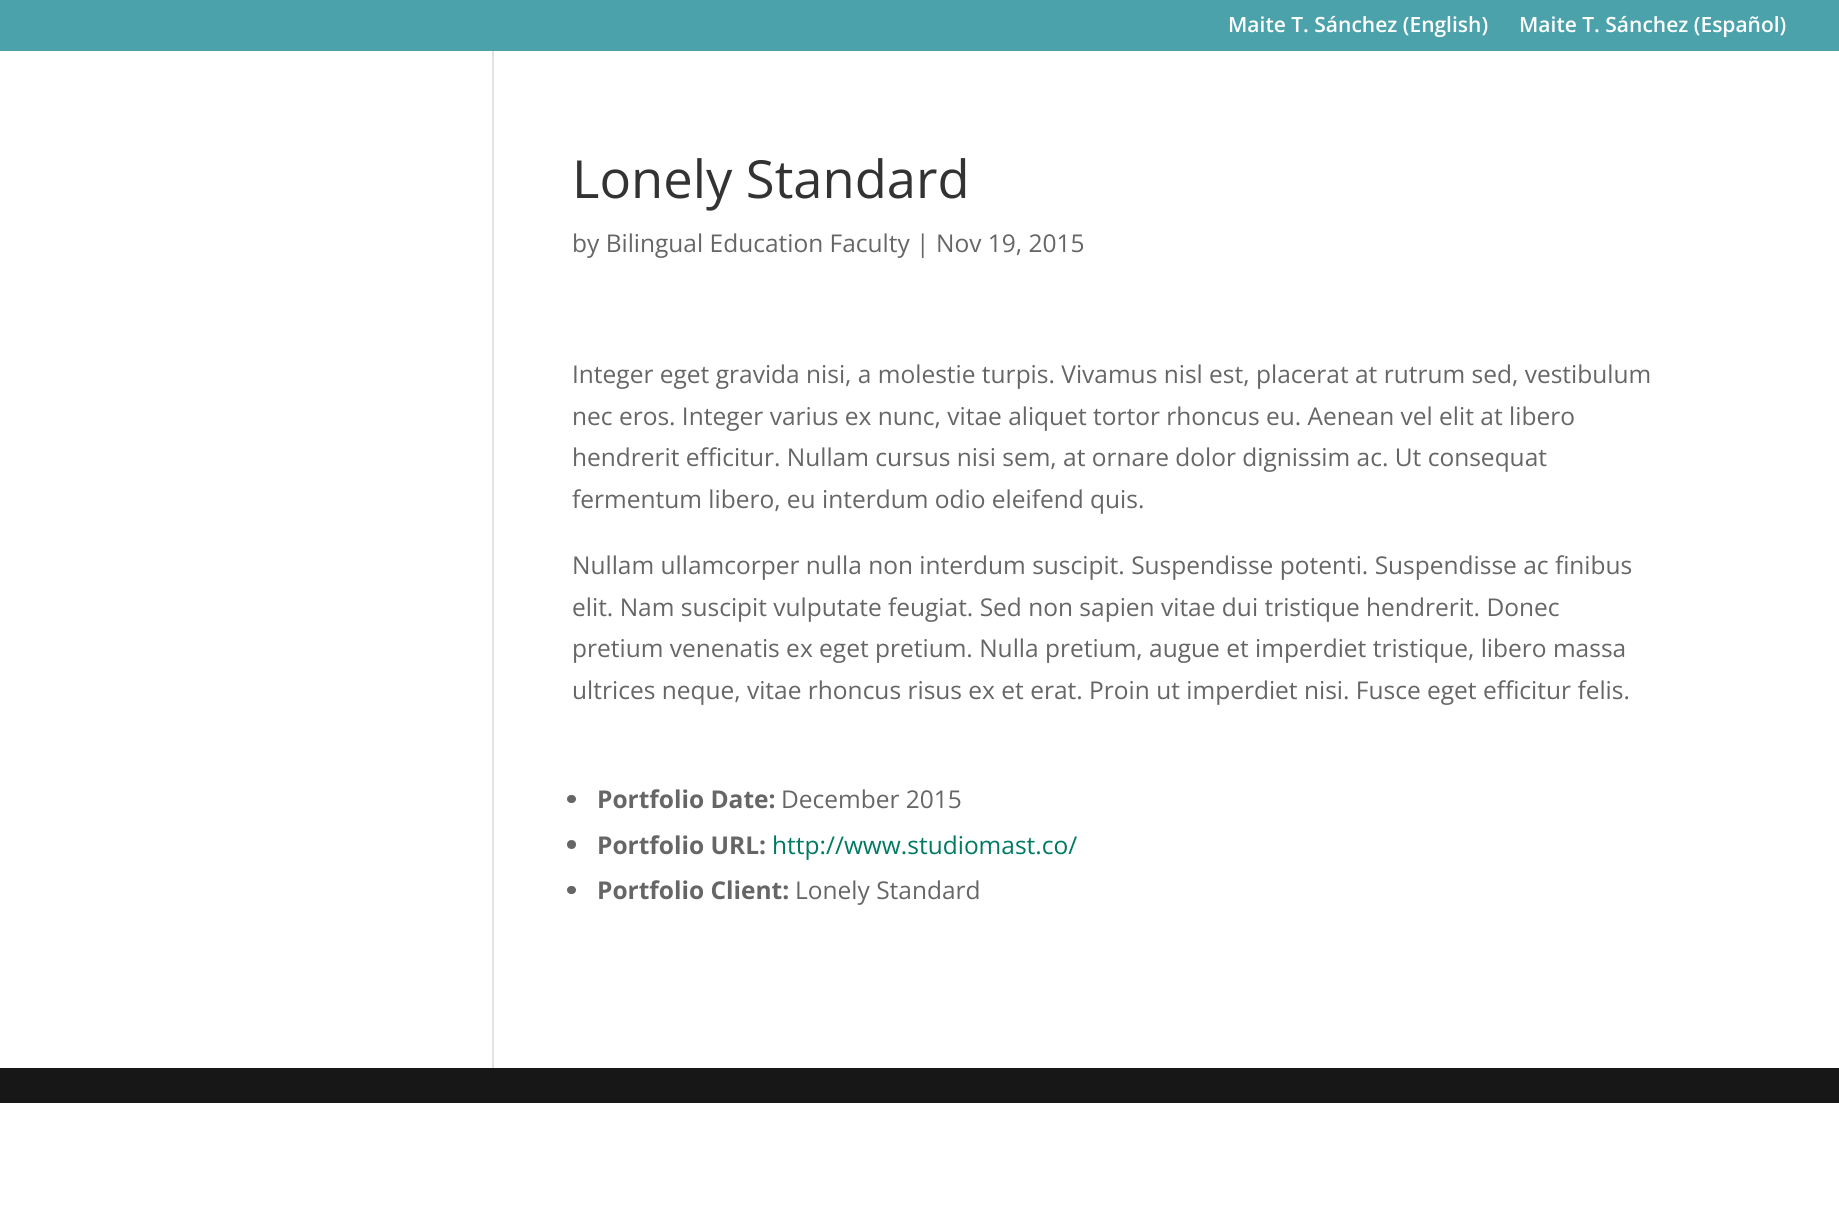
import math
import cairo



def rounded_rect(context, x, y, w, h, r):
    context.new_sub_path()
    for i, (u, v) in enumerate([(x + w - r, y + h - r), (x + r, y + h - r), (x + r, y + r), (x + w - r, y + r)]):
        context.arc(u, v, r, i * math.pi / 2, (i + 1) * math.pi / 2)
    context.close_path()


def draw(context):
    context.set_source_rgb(1, 1, 1)
    context.paint()
    context.set_source_rgb(76 / 255, 162 / 255, 171 / 255)
    context.rectangle(0, 0, 1839, 51)
    context.fill()
    context.set_source_rgb(226 / 255, 226 / 255, 226 / 255)
    context.rectangle(492, 51, 2, 1017)
    context.fill()
    context.set_source_rgb(102 / 255, 102 / 255, 102 / 255)
    rounded_rect(context, 567, 795, 9, 8, 4)
    context.fill()
    context.arc(571.5, 844.5, 4.5, 0, 2 * math.pi)
    context.fill()
    rounded_rect(context, 567, 886, 9, 8, 4)
    context.fill()
    context.set_source_rgb(23 / 255, 23 / 255, 23 / 255)
    context.rectangle(0, 1068, 1839, 35)
    context.fill()
    context.select_font_face("Open Sans SemiBold")
    context.set_font_size(21)
    context.set_source_rgb(1, 1, 1)
    context.move_to(1228, 32)
    context.show_text("Maite T. Sánchez (English)")
    context.move_to(1519, 32)
    context.show_text("Maite T. Sánchez (Español)")
    context.select_font_face("Open Sans")
    context.set_font_size(52.5)
    context.set_source_rgb(51 / 255, 51 / 255, 51 / 255)
    context.move_to(572, 198)
    context.show_text("Lonely Standard")
    context.set_font_size(24.5)
    context.set_source_rgb(102 / 255, 102 / 255, 102 / 255)
    context.move_to(572, 252)
    context.show_text("by Bilingual Education Faculty | Nov 19, 2015")
    context.move_to(572, 383)
    context.show_text("Integer eget gravida nisi, a molestie turpis. Vivamus nisl est, placerat at rutrum sed, vestibulum")
    context.move_to(572, 425)
    context.show_text("nec eros. Integer varius ex nunc, vitae aliquet tortor rhoncus eu. Aenean vel elit at libero")
    context.move_to(572, 466)
    context.show_text("hendrerit efficitur. Nullam cursus nisi sem, at ornare dolor dignissim ac. Ut consequat")
    context.move_to(572, 508)
    context.show_text("fermentum libero, eu interdum odio eleifend quis.")
    context.move_to(572, 574)
    context.show_text("Nullam ullamcorper nulla non interdum suscipit. Suspendisse potenti. Suspendisse ac finibus")
    context.move_to(572, 616)
    context.show_text("elit. Nam suscipit vulputate feugiat. Sed non sapien vitae dui tristique hendrerit. Donec")
    context.move_to(572, 657)
    context.show_text("pretium venenatis ex eget pretium. Nulla pretium, augue et imperdiet tristique, libero massa")
    context.move_to(572, 699)
    context.show_text("ultrices neque, vitae rhoncus risus ex et erat. Proin ut imperdiet nisi. Fusce eget efficitur felis.")
    context.select_font_face("Open Sans", cairo.FontSlant.NORMAL, cairo.FontWeight.BOLD)
    context.move_to(597, 808)
    context.show_text("Portfolio Date:")
    context.select_font_face("Open Sans")
    context.move_to(781, 808)
    context.show_text("December 2015")
    context.select_font_face("Open Sans", cairo.FontSlant.NORMAL, cairo.FontWeight.BOLD)
    context.move_to(597, 854)
    context.show_text("Portfolio URL:")
    context.select_font_face("Open Sans")
    context.set_source_rgb(0, 122 / 255, 99 / 255)
    context.move_to(772, 854)
    context.show_text("http://www.studiomast.co/")
    context.select_font_face("Open Sans", cairo.FontSlant.NORMAL, cairo.FontWeight.BOLD)
    context.set_source_rgb(102 / 255, 102 / 255, 102 / 255)
    context.move_to(597, 899)
    context.show_text("Portfolio Client:")
    context.select_font_face("Open Sans")
    context.move_to(795, 899)
    context.show_text("Lonely Standard")


surface = cairo.ImageSurface(cairo.Format.RGB24, 1839, 1210)
context = cairo.Context(surface)
options = cairo.FontOptions()
options.set_hint_metrics(cairo.HintMetrics.OFF)
options.set_hint_style(cairo.HintStyle.NONE)
context.set_font_options(options)
context.set_miter_limit(4)
draw(context)
surface.write_to_png("out.png")
